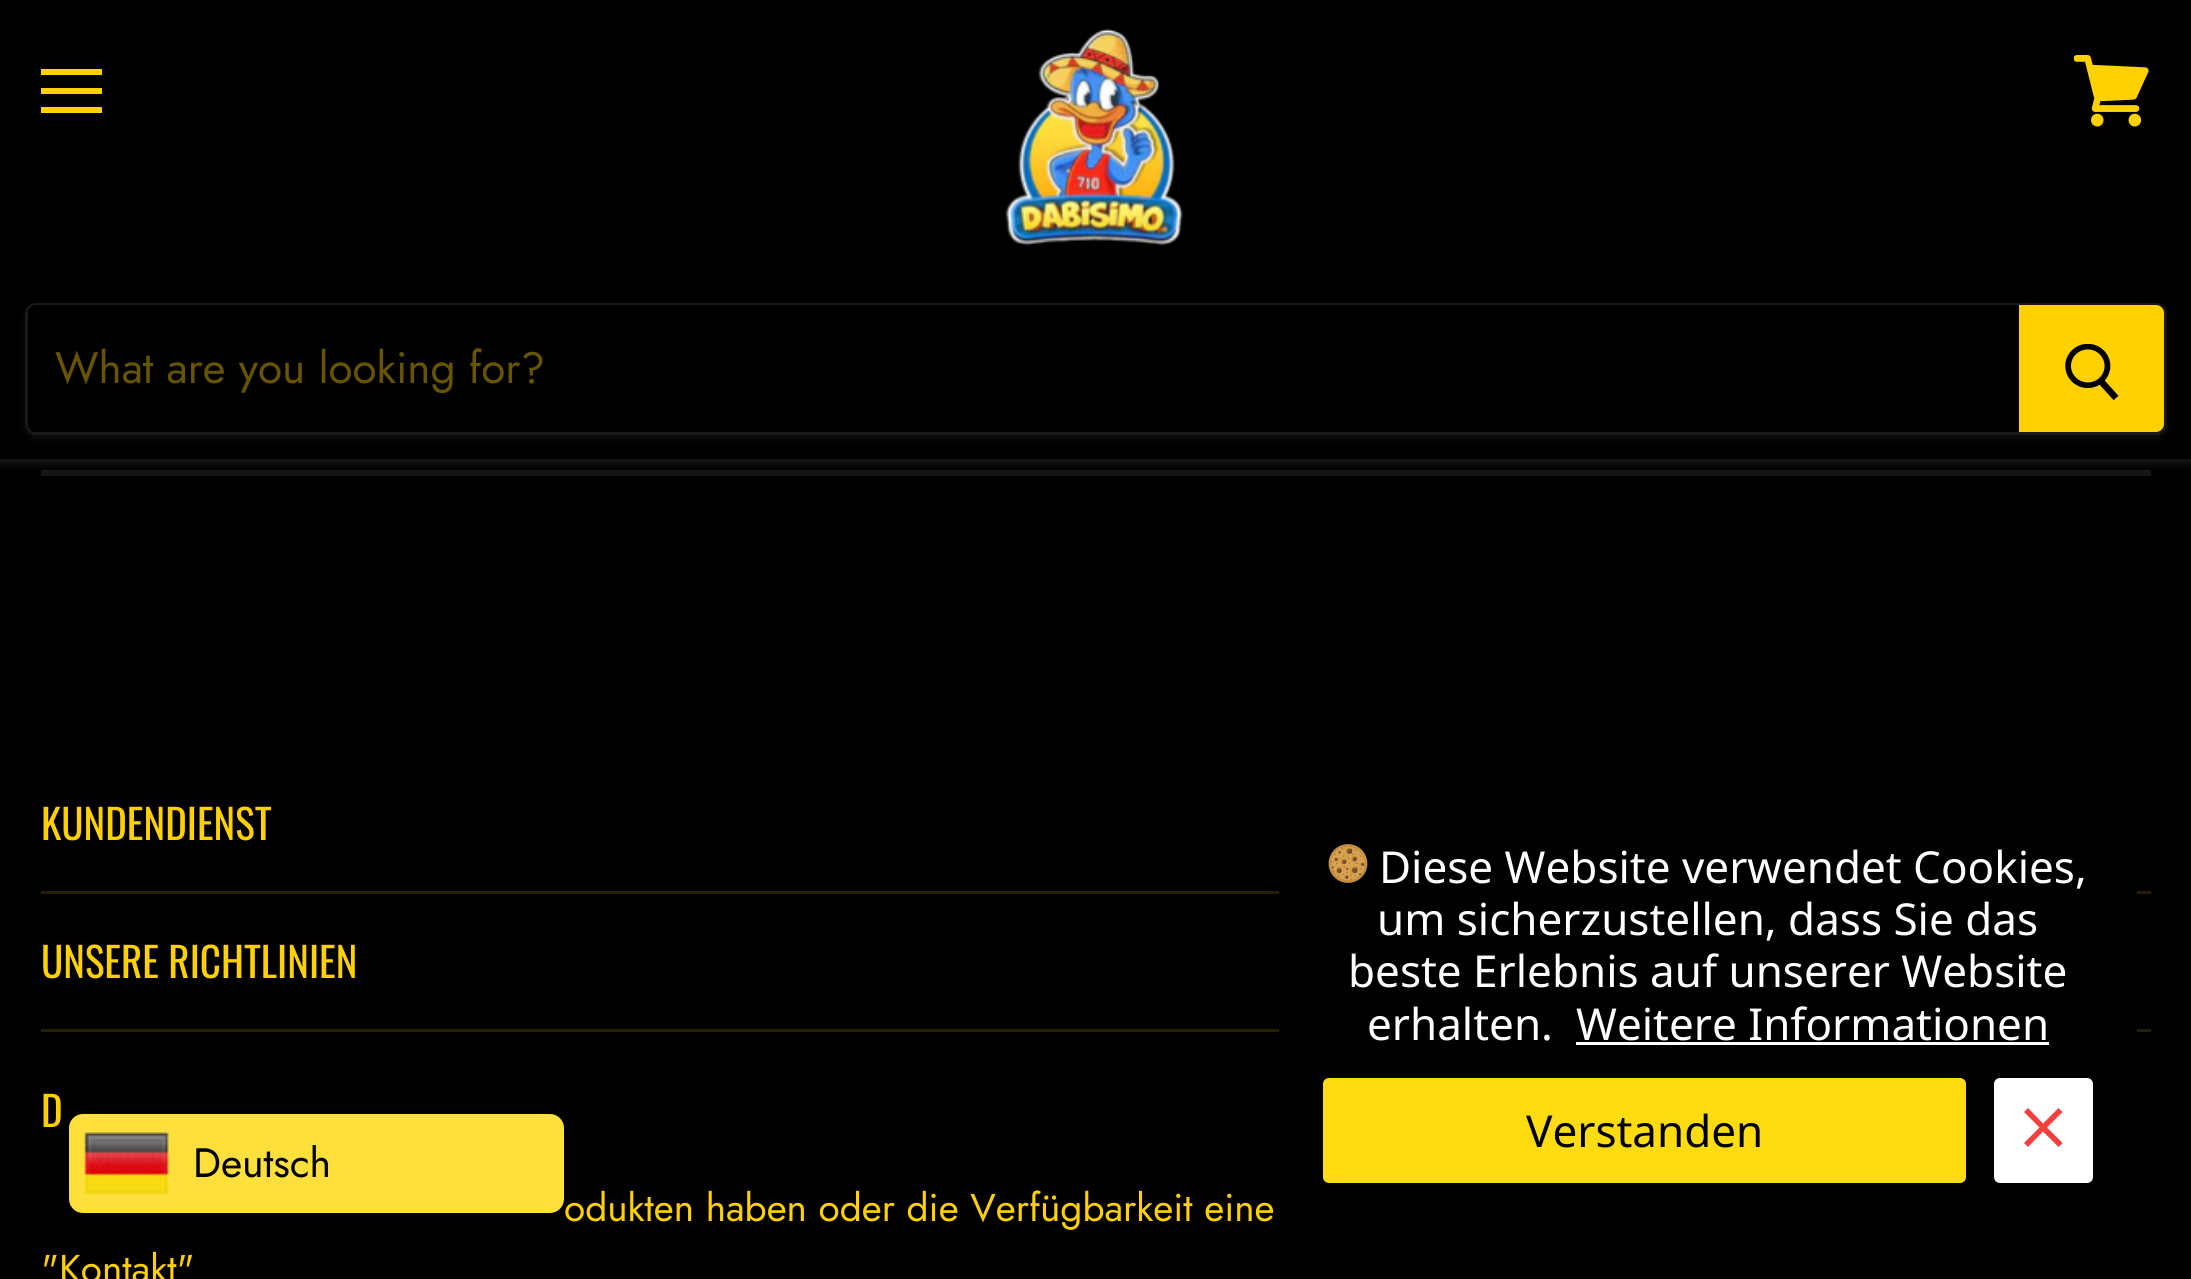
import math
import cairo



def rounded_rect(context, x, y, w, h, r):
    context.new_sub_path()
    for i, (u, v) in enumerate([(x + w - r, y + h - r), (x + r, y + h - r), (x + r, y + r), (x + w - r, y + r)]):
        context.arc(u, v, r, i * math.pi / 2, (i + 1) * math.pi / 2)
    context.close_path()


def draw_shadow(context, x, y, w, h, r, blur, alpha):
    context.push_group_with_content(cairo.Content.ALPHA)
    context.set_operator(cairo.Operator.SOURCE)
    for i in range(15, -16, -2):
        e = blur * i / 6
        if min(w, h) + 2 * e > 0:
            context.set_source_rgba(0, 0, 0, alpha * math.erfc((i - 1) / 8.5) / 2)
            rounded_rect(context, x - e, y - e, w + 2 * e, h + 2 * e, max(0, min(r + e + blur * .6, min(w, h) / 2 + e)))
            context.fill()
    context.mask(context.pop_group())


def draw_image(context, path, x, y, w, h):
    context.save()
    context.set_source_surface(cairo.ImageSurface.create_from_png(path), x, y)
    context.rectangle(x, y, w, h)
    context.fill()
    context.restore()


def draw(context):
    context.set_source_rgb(0, 0, 0)
    context.paint()
    context.set_source_rgb(21 / 255, 21 / 255, 21 / 255)
    context.rectangle(41, 470, 2110, 6)
    context.fill()
    context.set_source_rgb(127 / 255, 127 / 255, 127 / 255)
    draw_shadow(context, 0, 3, 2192, 459, 0, 5.5, 0.25)
    context.set_source_rgb(0, 0, 0)
    context.rectangle(0, 0, 2191, 459)
    context.fill()
    context.set_source_rgb(1, 209 / 255, 0)
    context.rectangle(41, 69, 61, 6)
    context.fill()
    context.rectangle(41, 88, 61, 6)
    context.fill()
    context.rectangle(41, 107, 61, 6)
    context.fill()
    draw_image(context, "images/1.png", 1005, 28, 178, 218)
    draw_image(context, "images/2.png", 2074, 55, 75, 72)
    context.save()
    context.set_fill_rule(cairo.FillRule.EVEN_ODD)
    context.new_path()
    context.move_to(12, 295)
    context.line_to(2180, 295)
    context.line_to(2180, 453)
    context.line_to(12, 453)
    context.close_path()
    context.move_to(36, 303)
    context.line_to(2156, 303)
    context.curve_to(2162, 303, 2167, 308, 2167, 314)
    context.line_to(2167, 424)
    context.curve_to(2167, 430, 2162, 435, 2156, 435)
    context.line_to(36, 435)
    context.curve_to(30, 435, 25, 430, 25, 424)
    context.line_to(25, 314)
    context.curve_to(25, 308, 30, 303, 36, 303)
    context.close_path()
    context.clip()
    context.set_source_rgb(127 / 255, 127 / 255, 127 / 255)
    draw_shadow(context, 25, 308, 2142, 132, 11, 4, 0.11)
    context.restore()
    rounded_rect(context, 26.5, 304.5, 2139, 129, 9.5)
    context.set_source_rgba(127 / 255, 127 / 255, 127 / 255, 0.2)
    context.set_line_width(3)
    context.stroke()
    context.set_source_rgb(0, 0, 0)
    context.new_path()
    context.move_to(36, 305)
    context.line_to(2019, 305)
    context.line_to(2019, 432)
    context.line_to(36, 432)
    context.curve_to(31.5, 432, 28, 428.5, 28, 424)
    context.line_to(28, 313)
    context.curve_to(28, 308.5, 31.5, 305, 36, 305)
    context.close_path()
    context.fill()
    context.set_source_rgb(1, 209 / 255, 0)
    context.new_path()
    context.move_to(2020.5, 306.5)
    context.line_to(2156, 306.5)
    context.curve_to(2159.5, 306.5, 2162.5, 309.5, 2162.5, 313)
    context.line_to(2162.5, 424)
    context.curve_to(2162.5, 427.5, 2159.5, 430.5, 2156, 430.5)
    context.line_to(2020.5, 430.5)
    context.close_path()
    context.fill_preserve()
    context.stroke()
    draw_image(context, "images/3.png", 2065, 344, 54, 57)
    context.set_source_rgb(38 / 255, 31 / 255, 0)
    context.rectangle(41, 891, 2110, 3)
    context.fill()
    context.rectangle(41, 1029, 2110, 3)
    context.fill()
    context.set_source_rgb(0, 0, 0)
    rounded_rect(context, 1279, 798, 858, 429, 14)
    context.fill()
    draw_image(context, "images/4.png", 1328, 844, 40, 39)
    context.set_source_rgb(1, 1, 1)
    context.rectangle(1576, 1042, 473, 3)
    context.fill()
    context.set_source_rgb(1, 219 / 255, 17 / 255)
    rounded_rect(context, 1323, 1078, 643, 105, 6)
    context.fill()
    context.set_source_rgb(1, 1, 1)
    rounded_rect(context, 1994, 1078, 99, 105, 6)
    context.fill()
    context.set_source_rgb(244 / 255, 63 / 255, 63 / 255)
    context.new_path()
    context.move_to(2062.5, 1112)
    context.line_to(2058.5, 1108)
    context.line_to(2043, 1123.5)
    context.line_to(2028, 1108)
    context.line_to(2024, 1112)
    context.line_to(2039.5, 1127.5)
    context.line_to(2024, 1143)
    context.line_to(2028, 1147)
    context.line_to(2043, 1131.5)
    context.line_to(2058.5, 1147)
    context.line_to(2062.5, 1143)
    context.line_to(2047, 1127.5)
    context.close_path()
    context.fill()
    context.set_source_rgb(1, 223 / 255, 59 / 255)
    rounded_rect(context, 69, 1114, 495, 99, 14)
    context.fill()
    draw_image(context, "images/5.png", 84, 1132, 85, 63)
    context.select_font_face("Jost")
    context.set_font_size(44)
    context.set_source_rgb(102 / 255, 84 / 255, 0)
    context.move_to(55, 383)
    context.show_text("What are you looking for?")
    context.select_font_face("Oswald")
    context.set_font_size(41)
    context.set_source_rgb(1, 209 / 255, 0)
    context.move_to(41, 840)
    context.show_text("KUNDENDIENST")
    context.move_to(41, 978)
    context.show_text("UNSERE RICHTLINIEN")
    context.move_to(41, 1127)
    context.show_text("D")
    context.select_font_face("Jost")
    context.set_font_size(38.7)
    context.move_to(564, 1221)
    context.show_text("odukten haben oder die Verfügbarkeit eine")
    context.move_to(41, 1282)
    context.show_text("\"Kontakt\"")
    context.select_font_face("Noto Sans")
    context.set_font_size(44)
    context.set_source_rgb(1, 1, 1)
    context.move_to(1379, 883)
    context.show_text("Diese Website verwendet Cookies,")
    context.move_to(1377, 935)
    context.show_text("um sicherzustellen, dass Sie das")
    context.move_to(1348, 987)
    context.show_text("beste Erlebnis auf unserer Website")
    context.move_to(1367, 1040)
    context.show_text("erhalten.")
    context.move_to(1576, 1040)
    context.show_text("Weitere Informationen")
    context.set_source_rgb(0, 0, 0)
    context.move_to(1526, 1147)
    context.show_text("Verstanden")
    context.select_font_face("Jost")
    context.set_font_size(41)
    context.move_to(193, 1177)
    context.show_text("Deutsch")


surface = cairo.ImageSurface(cairo.Format.RGB24, 2191, 1279)
context = cairo.Context(surface)
options = cairo.FontOptions()
options.set_hint_metrics(cairo.HintMetrics.OFF)
options.set_hint_style(cairo.HintStyle.NONE)
context.set_font_options(options)
context.set_miter_limit(4)
draw(context)
surface.write_to_png("out.png")
